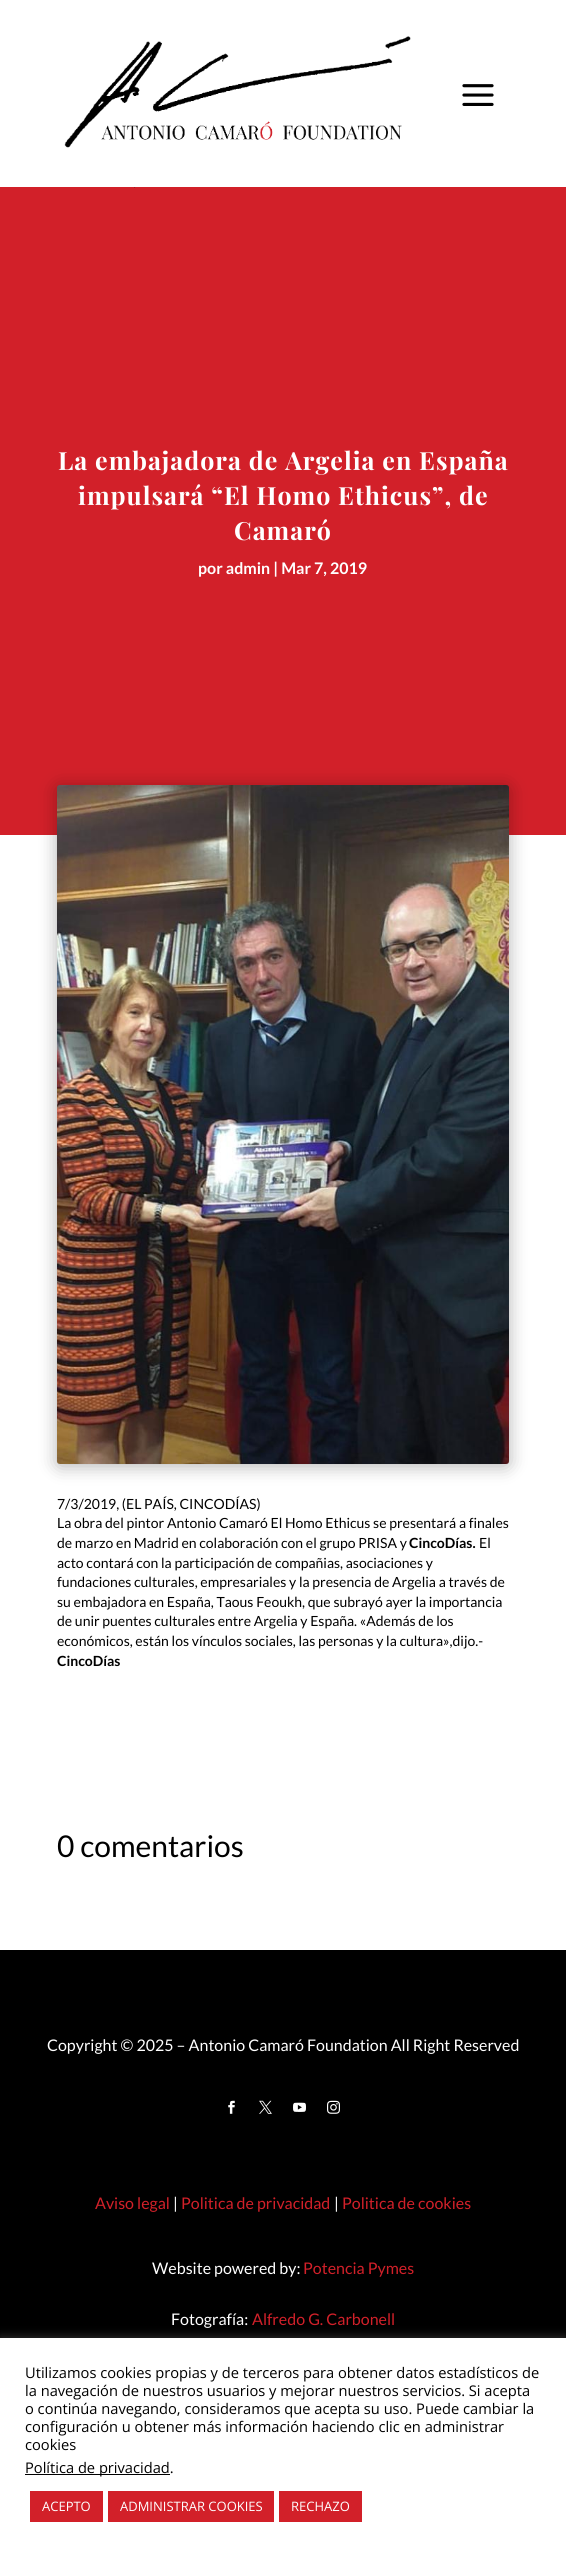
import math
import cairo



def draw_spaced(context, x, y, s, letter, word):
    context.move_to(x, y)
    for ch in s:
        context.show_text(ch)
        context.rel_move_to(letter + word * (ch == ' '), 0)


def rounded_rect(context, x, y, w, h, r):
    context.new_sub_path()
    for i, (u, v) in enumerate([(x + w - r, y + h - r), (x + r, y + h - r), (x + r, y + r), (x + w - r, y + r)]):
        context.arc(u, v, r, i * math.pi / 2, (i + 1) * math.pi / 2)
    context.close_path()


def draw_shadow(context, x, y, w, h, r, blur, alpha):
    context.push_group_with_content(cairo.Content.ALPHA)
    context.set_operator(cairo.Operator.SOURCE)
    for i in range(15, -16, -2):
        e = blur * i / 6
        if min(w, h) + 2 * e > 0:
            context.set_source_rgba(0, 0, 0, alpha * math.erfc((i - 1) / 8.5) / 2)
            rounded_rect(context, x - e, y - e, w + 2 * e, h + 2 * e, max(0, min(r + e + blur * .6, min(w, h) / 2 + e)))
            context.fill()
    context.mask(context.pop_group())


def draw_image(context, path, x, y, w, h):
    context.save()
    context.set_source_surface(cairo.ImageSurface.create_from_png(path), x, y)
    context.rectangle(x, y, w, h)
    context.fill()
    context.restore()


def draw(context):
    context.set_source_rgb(1, 1, 1)
    context.paint()
    draw_image(context, "images/1.png", 64, 36, 347, 112)
    draw_image(context, "images/2.png", 462, 84, 32, 22)
    context.set_source_rgb(210 / 255, 32 / 255, 41 / 255)
    context.rectangle(0, 187, 566, 648)
    context.fill()
    draw_image(context, "images/3.png", 134, 187, 2, 1)
    context.set_source_rgb(0, 0, 0)
    draw_shadow(context, 57, 787, 452, 679, 3, 9, 0.3)
    draw_image(context, "images/4.png", 57, 785, 452, 679)
    context.set_source_rgb(0, 0, 0)
    context.rectangle(0, 1950, 566, 388)
    context.fill()
    draw_image(context, "images/5.png", 228, 2100, 7, 14)
    draw_image(context, "images/6.png", 259, 2100, 13, 14)
    draw_image(context, "images/7.png", 293, 2102, 13, 10)
    draw_image(context, "images/8.png", 327, 2100, 13, 14)
    context.set_source_rgb(172 / 255, 171 / 255, 171 / 255)
    draw_shadow(context, 0, 2337, 566, 214, 0, 5, 0.3)
    context.set_source_rgb(1, 1, 1)
    context.rectangle(0, 2338, 566, 214)
    context.fill()
    context.set_source_rgb(0, 0, 0)
    context.rectangle(25, 2474, 145, 1)
    context.fill()
    context.set_source_rgb(210 / 255, 32 / 255, 41 / 255)
    context.rectangle(30, 2491, 73, 31)
    context.fill()
    context.rectangle(108, 2491, 166, 31)
    context.fill()
    context.rectangle(279, 2491, 83, 31)
    context.fill()
    context.select_font_face("Playfair Display", cairo.FontSlant.NORMAL, cairo.FontWeight.BOLD)
    context.set_font_size(25)
    context.set_source_rgb(1, 1, 1)
    draw_spaced(context, 58, 470, "La embajadora de Argelia en España", 1, 0)
    draw_spaced(context, 78, 505, "impulsará “El Homo Ethicus”, de", 1, 0)
    draw_spaced(context, 234, 540, "Camaró", 1, 0)
    context.select_font_face("Lato", cairo.FontSlant.NORMAL, cairo.FontWeight.BOLD)
    context.set_font_size(16)
    context.move_to(198, 574)
    context.show_text("por admin | Mar 7, 2019")
    context.select_font_face("Lato")
    context.set_font_size(14)
    context.set_source_rgb(0, 0, 0)
    context.move_to(57, 1509)
    context.show_text("7/3/2019, (EL PAÍS, CINCODÍAS)")
    context.move_to(57, 1528)
    context.show_text("La obra del pintor Antonio Camaró El Homo Ethicus se presentará a finales")
    context.move_to(57, 1548)
    context.show_text("de marzo en Madrid en colaboración con el grupo PRISA y")
    context.select_font_face("Lato", cairo.FontSlant.NORMAL, cairo.FontWeight.BOLD)
    context.move_to(409, 1548)
    context.show_text("CincoDías.")
    context.select_font_face("Lato")
    context.move_to(479, 1548)
    context.show_text("El")
    context.move_to(57, 1568)
    context.show_text("acto contará con la participación de compañias, asociaciones y")
    context.move_to(57, 1587)
    context.show_text("fundaciones culturales, empresariales y la presencia de Argelia a través de")
    context.move_to(57, 1607)
    context.show_text("su embajadora en España, Taous Feoukh, que subrayó ayer la importancia")
    context.move_to(57, 1626)
    context.show_text("de unir puentes culturales entre Argelia y España. «Además de los")
    context.move_to(57, 1646)
    context.show_text("económicos, están los vínculos sociales, las personas y la cultura»,dijo.-")
    context.select_font_face("Lato", cairo.FontSlant.NORMAL, cairo.FontWeight.BOLD)
    context.move_to(57, 1666)
    context.show_text("CincoDías")
    context.select_font_face("Lato")
    context.set_font_size(30)
    context.move_to(57, 1857)
    context.show_text("0 comentarios")
    context.set_font_size(16)
    context.set_source_rgb(1, 1, 1)
    context.move_to(47, 2051)
    context.show_text("Copyright © 2025 – Antonio Camaró Foundation All Right Reserved")
    context.set_source_rgb(210 / 255, 32 / 255, 41 / 255)
    context.move_to(95, 2209)
    context.show_text("Aviso legal")
    context.set_source_rgb(1, 1, 1)
    context.move_to(173, 2209)
    context.show_text("|")
    context.set_source_rgb(210 / 255, 32 / 255, 41 / 255)
    context.move_to(181, 2209)
    context.show_text("Politica de privacidad")
    context.set_source_rgb(1, 1, 1)
    context.move_to(334, 2209)
    context.show_text("|")
    context.set_source_rgb(210 / 255, 32 / 255, 41 / 255)
    context.move_to(342, 2209)
    context.show_text("Politica de cookies")
    context.set_source_rgb(1, 1, 1)
    context.move_to(152, 2274)
    context.show_text("Website powered by:")
    context.set_source_rgb(210 / 255, 32 / 255, 41 / 255)
    context.move_to(303, 2274)
    context.show_text("Potencia Pymes")
    context.set_source_rgb(1, 1, 1)
    context.move_to(171, 2325)
    context.show_text("Fotografía:")
    context.set_source_rgb(210 / 255, 32 / 255, 41 / 255)
    context.move_to(252, 2325)
    context.show_text("Alfredo G. Carbonell")
    context.select_font_face("Open Sans")
    context.set_font_size(14.65)
    context.set_source_rgb(0, 0, 0)
    context.move_to(25, 2378)
    context.show_text("Utilizamos cookies propias y de terceros para obtener datos estadísticos de")
    context.move_to(25, 2396)
    context.show_text("la navegación de nuestros usuarios y mejorar nuestros servicios. Si acepta")
    context.move_to(25, 2414)
    context.show_text("o continúa navegando, consideramos que acepta su uso. Puede cambiar la")
    context.move_to(25, 2432)
    context.show_text("configuración u obtener más información haciendo clic en administrar")
    context.move_to(25, 2450)
    context.show_text("cookies")
    context.move_to(25, 2473)
    context.show_text("Política de privacidad.")
    context.set_font_size(13)
    context.set_source_rgb(1, 1, 1)
    context.move_to(42, 2511)
    context.show_text("ACEPTO")
    context.move_to(120, 2511)
    context.show_text("ADMINISTRAR COOKIES")
    context.move_to(291, 2511)
    context.show_text("RECHAZO")


surface = cairo.ImageSurface(cairo.Format.RGB24, 566, 2552)
context = cairo.Context(surface)
options = cairo.FontOptions()
options.set_hint_metrics(cairo.HintMetrics.OFF)
options.set_hint_style(cairo.HintStyle.NONE)
context.set_font_options(options)
context.set_miter_limit(4)
draw(context)
surface.write_to_png("out.png")
